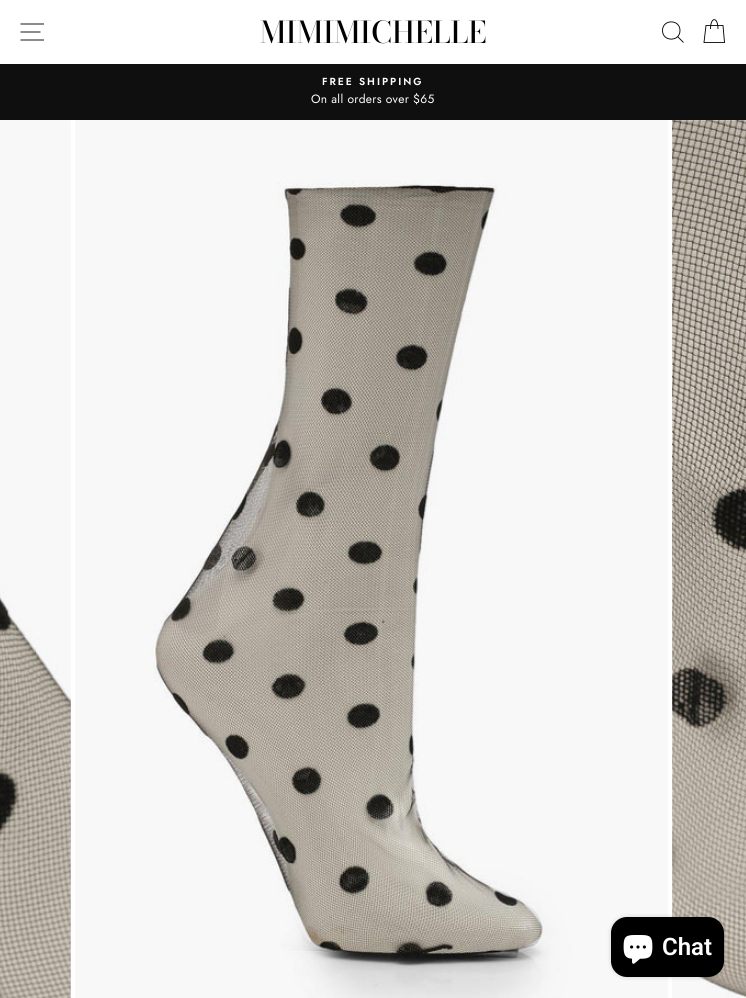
import math
import cairo



def draw_spaced(context, x, y, s, letter, word):
    context.move_to(x, y)
    for ch in s:
        context.show_text(ch)
        context.rel_move_to(letter + word * (ch == ' '), 0)


def rounded_rect(context, x, y, w, h, r):
    context.new_sub_path()
    for i, (u, v) in enumerate([(x + w - r, y + h - r), (x + r, y + h - r), (x + r, y + r), (x + w - r, y + r)]):
        context.arc(u, v, r, i * math.pi / 2, (i + 1) * math.pi / 2)
    context.close_path()


def draw_shadow(context, x, y, w, h, r, blur, alpha):
    context.push_group_with_content(cairo.Content.ALPHA)
    context.set_operator(cairo.Operator.SOURCE)
    for i in range(15, -16, -2):
        e = blur * i / 6
        if min(w, h) + 2 * e > 0:
            context.set_source_rgba(0, 0, 0, alpha * math.erfc((i - 1) / 8.5) / 2)
            rounded_rect(context, x - e, y - e, w + 2 * e, h + 2 * e, max(0, min(r + e + blur * .6, min(w, h) / 2 + e)))
            context.fill()
    context.mask(context.pop_group())


def draw_image(context, path, x, y, w, h):
    context.save()
    context.set_source_surface(cairo.ImageSurface.create_from_png(path), x, y)
    context.rectangle(x, y, w, h)
    context.fill()
    context.restore()


def draw(context):
    context.set_source_rgb(1, 1, 1)
    context.paint()
    context.new_path()
    context.move_to(20.5, 24)
    context.line_to(44, 24)
    context.move_to(20.5, 32)
    context.line_to(40.5, 32)
    context.move_to(20.5, 40)
    context.line_to(44, 40)
    context.set_source_rgb(0, 0, 0)
    context.set_line_width(0.9)
    context.stroke()
    context.new_path()
    context.move_to(680, 30.5)
    context.curve_to(680, 42, 662.5, 42, 662.5, 30.5)
    context.curve_to(662.5, 19, 680, 19, 680, 30.5)
    context.close_path()
    context.move_to(683.5, 42.5)
    context.line_to(677.5, 36.5)
    context.move_to(710.5, 29)
    context.curve_to(710.5, 16.5, 718, 16.5, 718, 29)
    context.move_to(706, 25.5)
    context.line_to(723, 25.5)
    context.line_to(724.5, 42.5)
    context.line_to(704, 42.5)
    context.close_path()
    context.stroke()
    context.set_source_rgb(15 / 255, 15 / 255, 15 / 255)
    context.rectangle(0, 64, 746, 56)
    context.fill()
    draw_image(context, "images/1.png", 0, 120, 71, 878)
    draw_image(context, "images/2.png", 75, 120, 593, 878)
    draw_image(context, "images/3.png", 672, 120, 74, 878)
    context.set_source_rgb(0, 0, 0)
    draw_shadow(context, 611, 917, 113, 60, 16, 2.5, 0.15)
    context.set_source_rgb(0, 0, 0)
    rounded_rect(context, 611, 917, 113, 60, 16)
    context.fill()
    draw_image(context, "images/4.png", 623, 935, 30, 29)
    context.select_font_face("Bodoni Moda Medium")
    context.set_font_size(30)
    context.move_to(260, 43)
    context.show_text("MIMIMICHELLE")
    context.select_font_face("Jost SemiBold")
    context.set_font_size(10.25)
    context.set_source_rgb(1, 1, 1)
    draw_spaced(context, 322, 85, "FREE SHIPPING", 2, 0)
    context.select_font_face("Jost")
    context.set_font_size(12)
    draw_spaced(context, 311, 103, "On all orders over $65", 0.3, 0)
    context.select_font_face("Roboto SemiBold")
    context.set_font_size(24)
    context.move_to(662, 955)
    context.show_text("Chat")


surface = cairo.ImageSurface(cairo.Format.RGB24, 746, 998)
context = cairo.Context(surface)
options = cairo.FontOptions()
options.set_hint_metrics(cairo.HintMetrics.OFF)
options.set_hint_style(cairo.HintStyle.NONE)
context.set_font_options(options)
context.set_miter_limit(4)
draw(context)
surface.write_to_png("out.png")
